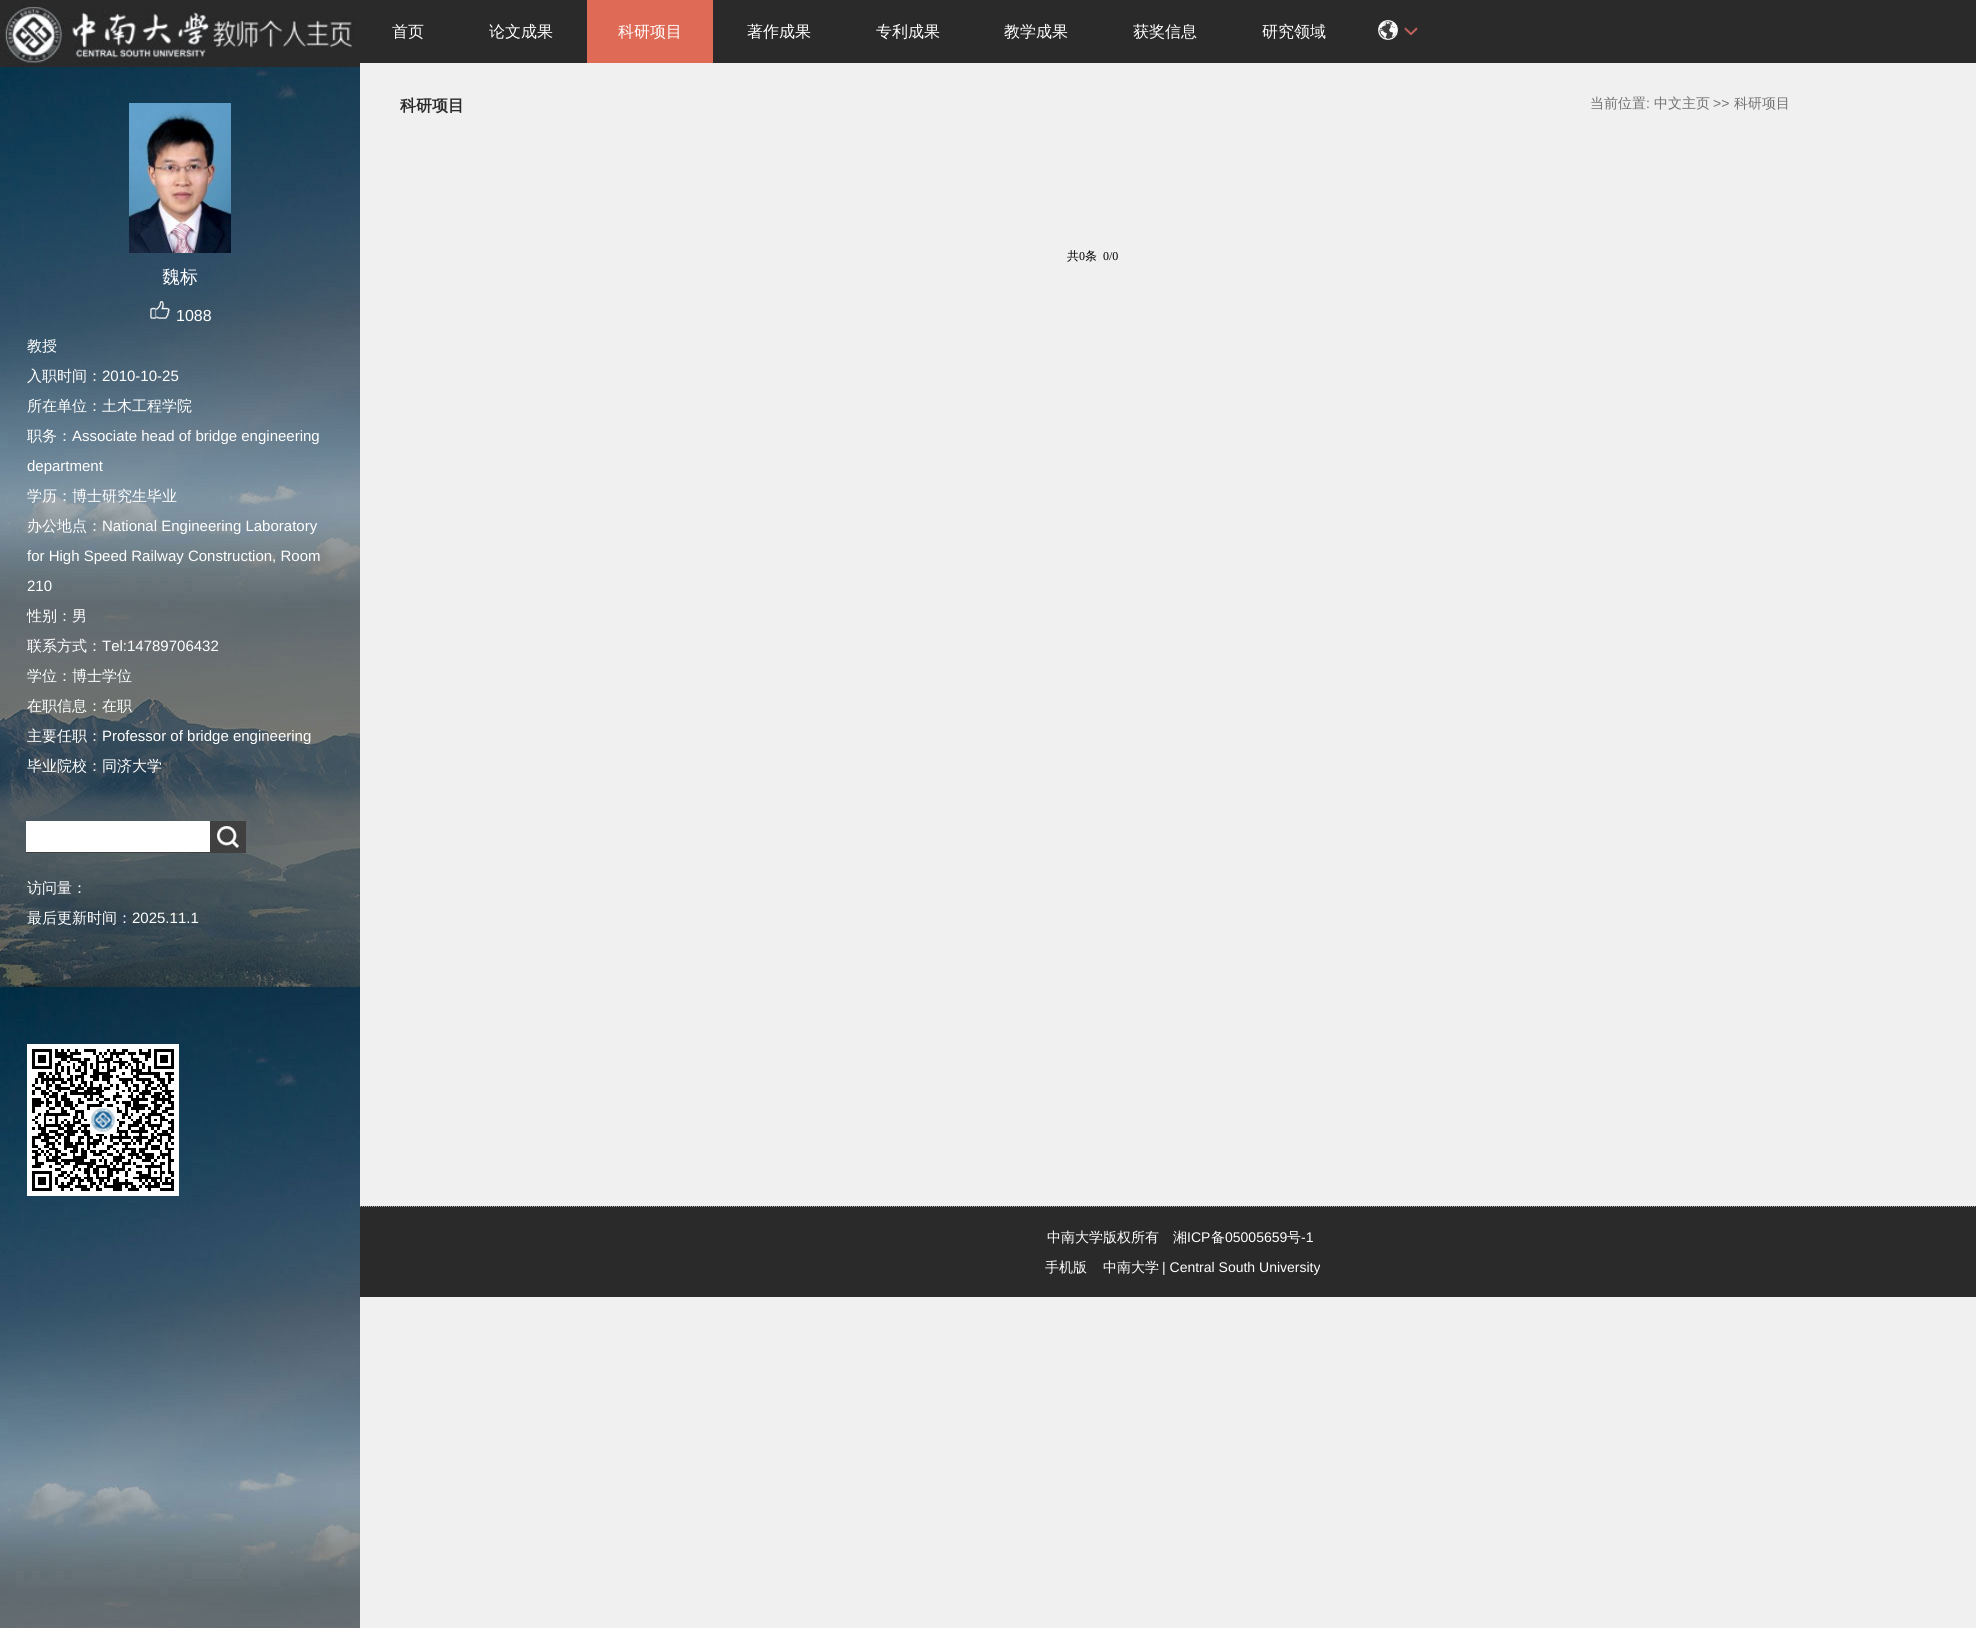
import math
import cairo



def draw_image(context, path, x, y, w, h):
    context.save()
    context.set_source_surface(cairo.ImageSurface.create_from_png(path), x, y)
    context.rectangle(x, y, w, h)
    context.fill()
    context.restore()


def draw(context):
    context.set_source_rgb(240 / 255, 240 / 255, 240 / 255)
    context.paint()
    draw_image(context, "images/1.png", 0, 67, 360, 1561)
    context.set_source_rgb(42 / 255, 42 / 255, 42 / 255)
    context.rectangle(0, 0, 360, 6)
    context.fill()
    draw_image(context, "images/2.png", 0, 6, 360, 61)
    draw_image(context, "images/3.png", 129, 103, 102, 150)
    draw_image(context, "images/4.png", 150, 301, 20, 18)
    context.set_source_rgb(64 / 255, 64 / 255, 64 / 255)
    context.rectangle(26, 821, 220, 32)
    context.fill()
    context.set_source_rgb(1, 1, 1)
    context.rectangle(26, 821, 184, 31)
    context.fill()
    draw_image(context, "images/5.png", 213, 821, 28, 29)
    context.rectangle(27, 1044, 152, 152)
    context.fill()
    draw_image(context, "images/6.png", 32, 1049, 142, 142)
    context.set_source_rgb(42 / 255, 42 / 255, 42 / 255)
    context.rectangle(360, 0, 1616, 63)
    context.fill()
    context.set_source_rgb(223 / 255, 107 / 255, 87 / 255)
    context.rectangle(587, 0, 126, 63)
    context.fill()
    draw_image(context, "images/7.png", 1404, 27, 14, 9)
    draw_image(context, "images/8.png", 1378, 20, 20, 20)
    context.set_source_rgb(42 / 255, 42 / 255, 42 / 255)
    context.rectangle(360, 1206, 1616, 91)
    context.fill()
    context.new_path()
    context.move_to(360, 1206.5)
    context.line_to(1976, 1206.5)
    context.set_source_rgb(158 / 255, 158 / 255, 158 / 255)
    context.set_line_width(1)
    context.set_dash([1, 1])
    context.stroke()
    context.select_font_face("WenQuanYi Zen Hei Medium")
    context.set_font_size(18)
    context.set_source_rgb(1, 1, 1)
    context.move_to(162, 283)
    context.show_text("魏标")
    context.select_font_face("Liberation Sans")
    context.set_font_size(16)
    context.move_to(176, 321)
    context.show_text("1088")
    context.select_font_face("WenQuanYi Zen Hei Medium")
    context.set_font_size(15)
    context.move_to(27, 351)
    context.show_text("教授")
    context.move_to(27, 381)
    context.show_text("入职时间：")
    context.select_font_face("Liberation Sans")
    context.move_to(102, 381)
    context.show_text("2010-10-25")
    context.select_font_face("WenQuanYi Zen Hei Medium")
    context.move_to(27, 411)
    context.show_text("所在单位：土木工程学院")
    context.move_to(27, 441)
    context.show_text("职务：")
    context.select_font_face("Liberation Sans")
    context.move_to(72, 441)
    context.show_text("Associate head of bridge engineering")
    context.move_to(27, 471)
    context.show_text("department")
    context.select_font_face("WenQuanYi Zen Hei Medium")
    context.move_to(27, 501)
    context.show_text("学历：博士研究生毕业")
    context.move_to(27, 531)
    context.show_text("办公地点：")
    context.select_font_face("Liberation Sans")
    context.move_to(102, 531)
    context.show_text("National Engineering Laboratory")
    context.move_to(27, 561)
    context.show_text("for High Speed Railway Construction, Room")
    context.move_to(27, 591)
    context.show_text("210")
    context.select_font_face("WenQuanYi Zen Hei Medium")
    context.move_to(27, 621)
    context.show_text("性别：男")
    context.move_to(27, 651)
    context.show_text("联系方式：")
    context.select_font_face("Liberation Sans")
    context.move_to(102, 651)
    context.show_text("Tel:14789706432")
    context.select_font_face("WenQuanYi Zen Hei Medium")
    context.move_to(27, 681)
    context.show_text("学位：博士学位")
    context.move_to(27, 711)
    context.show_text("在职信息：在职")
    context.move_to(27, 741)
    context.show_text("主要任职：")
    context.select_font_face("Liberation Sans")
    context.move_to(102, 741)
    context.show_text("Professor of bridge engineering")
    context.select_font_face("WenQuanYi Zen Hei Medium")
    context.move_to(27, 771)
    context.show_text("毕业院校：同济大学")
    context.move_to(27, 893)
    context.show_text("访问量：")
    context.move_to(27, 923)
    context.show_text("最后更新时间：")
    context.select_font_face("Liberation Sans")
    context.move_to(132, 923)
    context.show_text("2025.11.1")
    context.select_font_face("WenQuanYi Zen Hei Medium")
    context.set_font_size(16)
    context.move_to(392, 37)
    context.show_text("首页")
    context.move_to(489, 37)
    context.show_text("论文成果")
    context.move_to(618, 37)
    context.show_text("科研项目")
    context.move_to(747, 37)
    context.show_text("著作成果")
    context.move_to(876, 37)
    context.show_text("专利成果")
    context.move_to(1004, 37)
    context.show_text("教学成果")
    context.move_to(1133, 37)
    context.show_text("获奖信息")
    context.move_to(1262, 37)
    context.show_text("研究领域")
    context.select_font_face("WenQuanYi Zen Hei", cairo.FontSlant.NORMAL, cairo.FontWeight.BOLD)
    context.set_source_rgb(42 / 255, 42 / 255, 42 / 255)
    context.move_to(400, 111)
    context.show_text("科研项目")
    context.select_font_face("WenQuanYi Zen Hei Medium")
    context.set_font_size(14)
    context.set_source_rgb(114 / 255, 114 / 255, 114 / 255)
    context.move_to(1590, 108)
    context.show_text("当前位置")
    context.select_font_face("Liberation Sans")
    context.move_to(1646, 108)
    context.show_text(":")
    context.select_font_face("WenQuanYi Zen Hei Medium")
    context.move_to(1654, 108)
    context.show_text("中文主页")
    context.select_font_face("Liberation Sans")
    context.move_to(1713, 108)
    context.show_text(">>")
    context.select_font_face("WenQuanYi Zen Hei Medium")
    context.move_to(1734, 108)
    context.show_text("科研项目")
    context.set_font_size(12)
    context.set_source_rgb(0, 0, 0)
    context.move_to(1067, 260)
    context.show_text("共")
    context.select_font_face("Liberation Serif")
    context.move_to(1079, 260)
    context.show_text("0")
    context.select_font_face("WenQuanYi Zen Hei Medium")
    context.move_to(1085, 260)
    context.show_text("条")
    context.select_font_face("Liberation Serif")
    context.move_to(1103, 260)
    context.show_text("0/0")
    context.select_font_face("WenQuanYi Zen Hei Medium")
    context.set_font_size(14)
    context.set_source_rgb(1, 1, 1)
    context.move_to(1047, 1242)
    context.show_text("中南大学版权所有　湘")
    context.select_font_face("Liberation Sans")
    context.move_to(1187, 1242)
    context.show_text("ICP")
    context.select_font_face("WenQuanYi Zen Hei Medium")
    context.move_to(1211, 1242)
    context.show_text("备")
    context.select_font_face("Liberation Sans")
    context.move_to(1225, 1242)
    context.show_text("05005659")
    context.select_font_face("WenQuanYi Zen Hei Medium")
    context.move_to(1287, 1242)
    context.show_text("号")
    context.select_font_face("Liberation Sans")
    context.move_to(1301, 1242)
    context.show_text("-1")
    context.select_font_face("WenQuanYi Zen Hei Medium")
    context.move_to(1045, 1272)
    context.show_text("手机版")
    context.move_to(1103, 1272)
    context.show_text("中南大学")
    context.select_font_face("Liberation Sans")
    context.move_to(1162, 1272)
    context.show_text("| Central South University")


surface = cairo.ImageSurface(cairo.Format.RGB24, 1976, 1628)
context = cairo.Context(surface)
options = cairo.FontOptions()
options.set_hint_metrics(cairo.HintMetrics.OFF)
options.set_hint_style(cairo.HintStyle.NONE)
context.set_font_options(options)
context.set_miter_limit(4)
draw(context)
surface.write_to_png("out.png")
